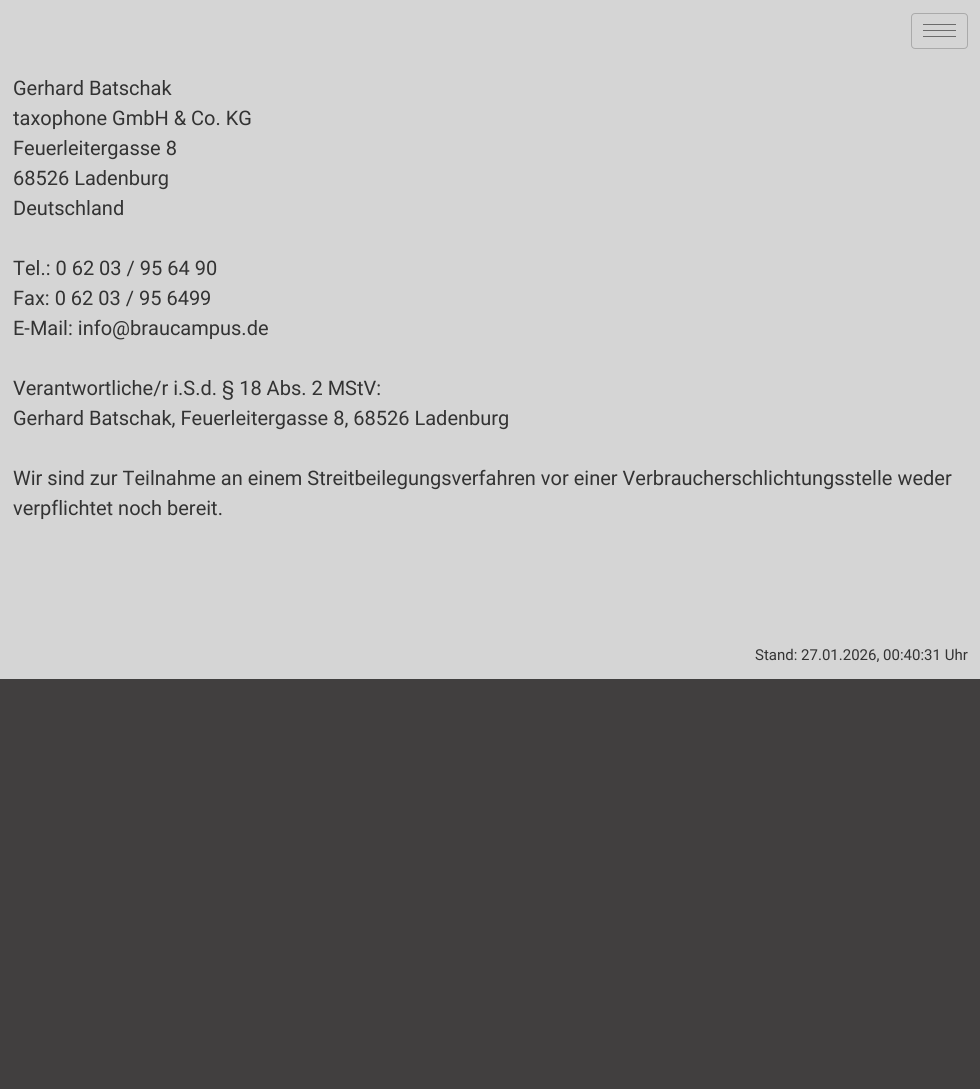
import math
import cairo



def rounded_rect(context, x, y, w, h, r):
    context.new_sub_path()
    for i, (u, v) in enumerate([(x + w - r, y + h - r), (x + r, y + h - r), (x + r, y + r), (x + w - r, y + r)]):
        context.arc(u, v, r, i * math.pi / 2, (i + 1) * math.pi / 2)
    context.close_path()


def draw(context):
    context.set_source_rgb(65 / 255, 63 / 255, 63 / 255)
    context.paint()
    context.set_source_rgb(213 / 255, 213 / 255, 213 / 255)
    context.rectangle(0, 0, 980, 679)
    context.fill()
    rounded_rect(context, 911.5, 13.5, 56, 35, 3.5)
    context.set_source_rgb(170 / 255, 170 / 255, 170 / 255)
    context.set_line_width(1)
    context.stroke()
    context.set_source_rgb(107 / 255, 107 / 255, 107 / 255)
    context.rectangle(923, 24, 33, 1)
    context.fill()
    context.rectangle(923, 30, 33, 1)
    context.fill()
    context.rectangle(923, 36, 33, 1)
    context.fill()
    context.select_font_face("Roboto")
    context.set_font_size(20)
    context.set_source_rgb(51 / 255, 51 / 255, 51 / 255)
    context.move_to(13, 95)
    context.show_text("Gerhard Batschak")
    context.move_to(13, 125)
    context.show_text("taxophone GmbH & Co. KG")
    context.move_to(13, 155)
    context.show_text("Feuerleitergasse 8")
    context.move_to(13, 185)
    context.show_text("68526 Ladenburg")
    context.move_to(13, 215)
    context.show_text("Deutschland")
    context.move_to(13, 275)
    context.show_text("Tel.: 0 62 03 / 95 64 90")
    context.move_to(13, 305)
    context.show_text("Fax: 0 62 03 / 95 6499")
    context.move_to(13, 335)
    context.show_text("E-Mail: info@braucampus.de")
    context.move_to(13, 395)
    context.show_text("Verantwortliche/r i.S.d. § 18 Abs. 2 MStV:")
    context.move_to(13, 425)
    context.show_text("Gerhard Batschak, Feuerleitergasse 8, 68526 Ladenburg")
    context.move_to(13, 485)
    context.show_text("Wir sind zur Teilnahme an einem Streitbeilegungsverfahren vor einer Verbraucherschlichtungsstelle weder")
    context.move_to(13, 515)
    context.show_text("verpflichtet noch bereit.")
    context.set_font_size(15)
    context.move_to(755, 660)
    context.show_text("Stand: 27.01.2026, 00:40:31 Uhr")


surface = cairo.ImageSurface(cairo.Format.RGB24, 980, 1089)
context = cairo.Context(surface)
options = cairo.FontOptions()
options.set_hint_metrics(cairo.HintMetrics.OFF)
options.set_hint_style(cairo.HintStyle.NONE)
context.set_font_options(options)
context.set_miter_limit(4)
draw(context)
surface.write_to_png("out.png")
